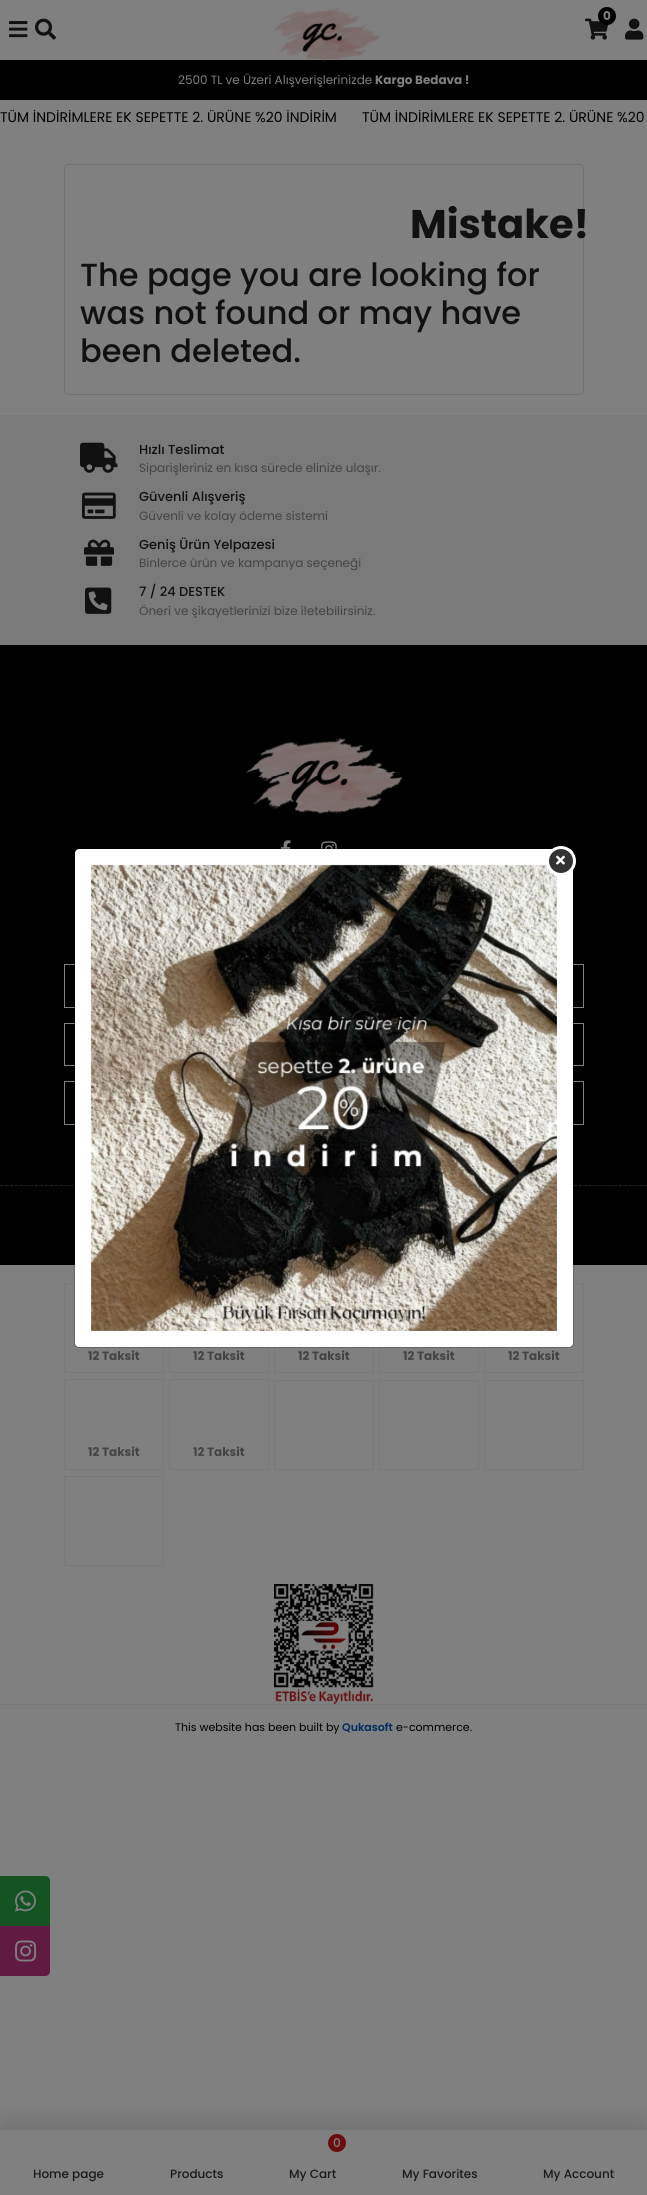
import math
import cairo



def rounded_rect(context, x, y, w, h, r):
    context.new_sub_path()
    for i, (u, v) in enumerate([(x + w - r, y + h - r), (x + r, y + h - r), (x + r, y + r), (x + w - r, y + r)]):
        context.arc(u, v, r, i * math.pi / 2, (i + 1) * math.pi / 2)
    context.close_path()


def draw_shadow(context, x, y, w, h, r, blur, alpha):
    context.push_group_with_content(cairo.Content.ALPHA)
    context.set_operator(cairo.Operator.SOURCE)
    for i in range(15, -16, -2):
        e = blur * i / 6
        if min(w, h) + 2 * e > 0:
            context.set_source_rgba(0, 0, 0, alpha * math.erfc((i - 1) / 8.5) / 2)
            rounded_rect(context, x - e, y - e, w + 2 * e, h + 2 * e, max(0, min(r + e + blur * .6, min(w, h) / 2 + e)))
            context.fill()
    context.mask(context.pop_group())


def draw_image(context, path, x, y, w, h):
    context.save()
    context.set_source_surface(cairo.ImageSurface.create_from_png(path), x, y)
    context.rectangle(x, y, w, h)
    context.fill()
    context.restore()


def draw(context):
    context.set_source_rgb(128 / 255, 128 / 255, 128 / 255)
    context.paint()
    context.set_source_rgb(0, 0, 0)
    context.rectangle(0, 60, 647, 40)
    context.fill()
    draw_image(context, "images/1.png", 271, 8, 110, 53)
    draw_image(context, "images/2.png", 585, 18, 24, 22)
    context.arc(607, 16, 9, 0, 2 * math.pi)
    context.fill()
    draw_image(context, "images/3.png", 625, 18, 19, 22)
    draw_image(context, "images/4.png", 9, 21, 19, 17)
    draw_image(context, "images/5.png", 35, 18, 21, 22)
    rounded_rect(context, 64.5, 164.5, 519, 230, 4.5)
    context.set_source_rgb(112 / 255, 112 / 255, 112 / 255)
    context.set_line_width(1)
    context.stroke()
    context.set_source_rgb(0, 0, 0)
    context.rectangle(0, 645, 647, 620)
    context.fill()
    context.set_source_rgb(122 / 255, 122 / 255, 122 / 255)
    context.rectangle(0, 415, 647, 230)
    context.fill()
    draw_image(context, "images/6.png", 80, 442, 38, 31)
    draw_image(context, "images/7.png", 82, 492, 34, 27)
    draw_image(context, "images/8.png", 84, 539, 30, 27)
    draw_image(context, "images/9.png", 85, 587, 27, 27)
    draw_image(context, "images/10.png", 245, 738, 158, 78)
    draw_image(context, "images/11.png", 280, 840, 11, 9)
    draw_image(context, "images/12.png", 321, 841, 16, 8)
    context.rectangle(64.5, 964.5, 519, 43)
    context.set_source_rgb(128 / 255, 128 / 255, 128 / 255)
    context.stroke()
    context.rectangle(64.5, 1023.5, 519, 42)
    context.stroke()
    context.rectangle(64.5, 1081.5, 519, 43)
    context.stroke()
    context.new_path()
    context.move_to(0, 1185.5)
    context.line_to(647, 1185.5)
    context.set_source_rgb(36 / 255, 36 / 255, 36 / 255)
    context.set_dash([3, 1.99])
    context.stroke()
    context.rectangle(64.5, 1283.5, 99, 89)
    context.set_source_rgb(121 / 255, 121 / 255, 121 / 255)
    context.set_dash([])
    context.stroke()
    context.rectangle(169.5, 1283.5, 99, 89)
    context.stroke()
    context.rectangle(274.5, 1283.5, 99, 89)
    context.stroke()
    context.rectangle(379.5, 1283.5, 99, 89)
    context.stroke()
    context.rectangle(484.5, 1283.5, 99, 89)
    context.stroke()
    context.rectangle(64.5, 1379.5, 99, 90)
    context.stroke()
    context.set_source_rgb(123 / 255, 124 / 255, 124 / 255)
    context.rectangle(113, 1412, 1, 1)
    context.fill()
    context.rectangle(169.5, 1379.5, 99, 90)
    context.set_source_rgb(121 / 255, 121 / 255, 121 / 255)
    context.stroke()
    context.set_source_rgb(123 / 255, 124 / 255, 124 / 255)
    context.rectangle(218, 1412, 1, 1)
    context.fill()
    context.rectangle(274.5, 1380.5, 99, 89)
    context.set_source_rgb(121 / 255, 121 / 255, 121 / 255)
    context.stroke()
    context.set_source_rgb(123 / 255, 124 / 255, 124 / 255)
    context.rectangle(323, 1413, 1, 1)
    context.fill()
    context.rectangle(379.5, 1380.5, 99, 89)
    context.set_source_rgb(121 / 255, 121 / 255, 121 / 255)
    context.stroke()
    context.set_source_rgb(123 / 255, 124 / 255, 124 / 255)
    context.rectangle(428, 1413, 1, 1)
    context.fill()
    context.rectangle(484.5, 1380.5, 99, 89)
    context.set_source_rgb(121 / 255, 121 / 255, 121 / 255)
    context.stroke()
    context.set_source_rgb(123 / 255, 124 / 255, 124 / 255)
    context.rectangle(533, 1413, 1, 1)
    context.fill()
    context.rectangle(64.5, 1476.5, 99, 89)
    context.set_source_rgb(121 / 255, 121 / 255, 121 / 255)
    context.stroke()
    context.set_source_rgb(123 / 255, 124 / 255, 124 / 255)
    context.rectangle(113, 1509, 1, 1)
    context.fill()
    context.set_source_rgb(1, 1, 1)
    rounded_rect(context, 75, 849, 498, 498, 4)
    context.fill()
    rounded_rect(context, 74.5, 848.5, 499, 499, 4.5)
    context.set_source_rgba(0, 0, 0, 0.2)
    context.stroke()
    draw_image(context, "images/14.png", 90, 864, 467, 467)
    context.set_source_rgb(51 / 255, 51 / 255, 51 / 255)
    context.arc(561, 861, 13.5, 0, 2 * math.pi)
    context.fill_preserve()
    context.set_source_rgb(1, 1, 1)
    context.set_line_width(3)
    context.stroke()
    draw_image(context, "images/13.png", 556, 855, 9, 10)
    draw_image(context, "images/15.png", 274, 1584, 100, 120)
    context.set_source_rgb(119 / 255, 119 / 255, 119 / 255)
    context.rectangle(0, 1704, 647, 1)
    context.fill()
    context.set_source_rgb(20 / 255, 84 / 255, 35 / 255)
    context.new_path()
    context.move_to(0, 1876)
    context.line_to(45, 1876)
    context.curve_to(48, 1876, 50, 1878, 50, 1881)
    context.line_to(50, 1926)
    context.line_to(0, 1926)
    context.close_path()
    context.fill()
    draw_image(context, "images/16.png", 15, 1890, 21, 22)
    context.set_source_rgb(97 / 255, 27 / 255, 66 / 255)
    context.new_path()
    context.move_to(0, 1926)
    context.line_to(50, 1926)
    context.line_to(50, 1971)
    context.curve_to(50, 1974, 48, 1976, 45, 1976)
    context.line_to(0, 1976)
    context.close_path()
    context.fill()
    draw_image(context, "images/17.png", 15, 1940, 22, 22)
    context.save()
    context.rectangle(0, 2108, 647, 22)
    context.clip()
    context.set_source_rgb(0, 0, 0)
    draw_shadow(context, 5, 2125, 637, 55, 0, 15, 0.15)
    context.restore()
    context.set_source_rgb(105 / 255, 14 / 255, 14 / 255)
    context.arc(337, 2143, 9, 0, 2 * math.pi)
    context.fill()
    context.select_font_face("Poppins", cairo.FontSlant.NORMAL, cairo.FontWeight.BOLD)
    context.set_font_size(12)
    context.set_source_rgb(128 / 255, 128 / 255, 128 / 255)
    context.move_to(603, 20)
    context.show_text("0")
    context.select_font_face("Poppins")
    context.move_to(178, 84)
    context.show_text("2500 TL ve Üzeri Alışverişlerinizde")
    context.select_font_face("Poppins", cairo.FontSlant.NORMAL, cairo.FontWeight.BOLD)
    context.move_to(375, 84)
    context.show_text("Kargo Bedava !")
    context.select_font_face("Poppins")
    context.set_font_size(14)
    context.set_source_rgb(0, 0, 0)
    context.move_to(0, 122)
    context.show_text("TÜM İNDİRİMLERE EK SEPETTE 2. ÜRÜNE %20 İNDİRİM")
    context.move_to(362, 122)
    context.show_text("TÜM İNDİRİMLERE EK SEPETTE 2. ÜRÜNE %20")
    context.select_font_face("Poppins", cairo.FontSlant.NORMAL, cairo.FontWeight.BOLD)
    context.set_font_size(40)
    context.set_source_rgb(17 / 255, 17 / 255, 17 / 255)
    context.move_to(410, 238)
    context.show_text("Mistake!")
    context.select_font_face("Poppins Medium")
    context.set_font_size(32)
    context.move_to(80, 286)
    context.show_text("The page you are looking for")
    context.move_to(80, 324)
    context.show_text("was not found or may have")
    context.move_to(80, 362)
    context.show_text("been deleted.")
    context.set_font_size(13)
    context.move_to(139, 454)
    context.show_text("Hızlı Teslimat")
    context.select_font_face("Poppins")
    context.set_font_size(12)
    context.set_source_rgb(68 / 255, 68 / 255, 68 / 255)
    context.move_to(139, 472)
    context.show_text("Siparişleriniz en kısa sürede elinize ulaşır.")
    context.select_font_face("Poppins Medium")
    context.set_font_size(13)
    context.set_source_rgb(17 / 255, 17 / 255, 17 / 255)
    context.move_to(139, 501)
    context.show_text("Güvenli Alışveriş")
    context.select_font_face("Poppins")
    context.set_font_size(12)
    context.set_source_rgb(68 / 255, 68 / 255, 68 / 255)
    context.move_to(139, 520)
    context.show_text("Güvenli ve kolay ödeme sistemi")
    context.select_font_face("Poppins Medium")
    context.set_font_size(13)
    context.set_source_rgb(17 / 255, 17 / 255, 17 / 255)
    context.move_to(139, 549)
    context.show_text("Geniş Ürün Yelpazesi")
    context.select_font_face("Poppins")
    context.set_font_size(12)
    context.set_source_rgb(68 / 255, 68 / 255, 68 / 255)
    context.move_to(139, 567)
    context.show_text("Binlerce ürün ve kampanya seçeneği")
    context.select_font_face("Poppins Medium")
    context.set_font_size(13)
    context.set_source_rgb(17 / 255, 17 / 255, 17 / 255)
    context.move_to(139, 596)
    context.show_text("7 / 24 DESTEK")
    context.select_font_face("Poppins")
    context.set_font_size(12)
    context.set_source_rgb(68 / 255, 68 / 255, 68 / 255)
    context.move_to(139, 615)
    context.show_text("Öneri ve şikayetlerinizi bize iletebilirsiniz.")
    context.select_font_face("Poppins", cairo.FontSlant.NORMAL, cairo.FontWeight.BOLD)
    context.move_to(88, 1360)
    context.show_text("12 Taksit")
    context.move_to(193, 1360)
    context.show_text("12 Taksit")
    context.move_to(298, 1360)
    context.show_text("12 Taksit")
    context.move_to(403, 1360)
    context.show_text("12 Taksit")
    context.move_to(508, 1360)
    context.show_text("12 Taksit")
    context.move_to(88, 1456)
    context.show_text("12 Taksit")
    context.move_to(193, 1456)
    context.show_text("12 Taksit")
    context.select_font_face("Poppins")
    context.set_font_size(11)
    context.set_source_rgb(0, 0, 0)
    context.move_to(175, 1731)
    context.show_text("This website has been built by")
    context.select_font_face("Poppins SemiBold")
    context.set_source_rgb(3 / 255, 41 / 255, 99 / 255)
    context.move_to(342, 1731)
    context.show_text("Qukasoft")
    context.select_font_face("Poppins")
    context.set_source_rgb(0, 0, 0)
    context.move_to(396, 1731)
    context.show_text("e-commerce.")
    context.select_font_face("Poppins Medium")
    context.set_font_size(12)
    context.set_source_rgb(26 / 255, 26 / 255, 26 / 255)
    context.move_to(33, 2178)
    context.show_text("Home page")
    context.move_to(170, 2178)
    context.show_text("Products")
    context.set_source_rgb(128 / 255, 128 / 255, 128 / 255)
    context.move_to(333, 2147)
    context.show_text("0")
    context.set_source_rgb(26 / 255, 26 / 255, 26 / 255)
    context.move_to(289, 2178)
    context.show_text("My Cart")
    context.move_to(402, 2178)
    context.show_text("My Favorites")
    context.move_to(543, 2178)
    context.show_text("My Account")


surface = cairo.ImageSurface(cairo.Format.RGB24, 647, 2195)
context = cairo.Context(surface)
options = cairo.FontOptions()
options.set_hint_metrics(cairo.HintMetrics.OFF)
options.set_hint_style(cairo.HintStyle.NONE)
context.set_font_options(options)
context.set_miter_limit(4)
draw(context)
surface.write_to_png("out.png")
